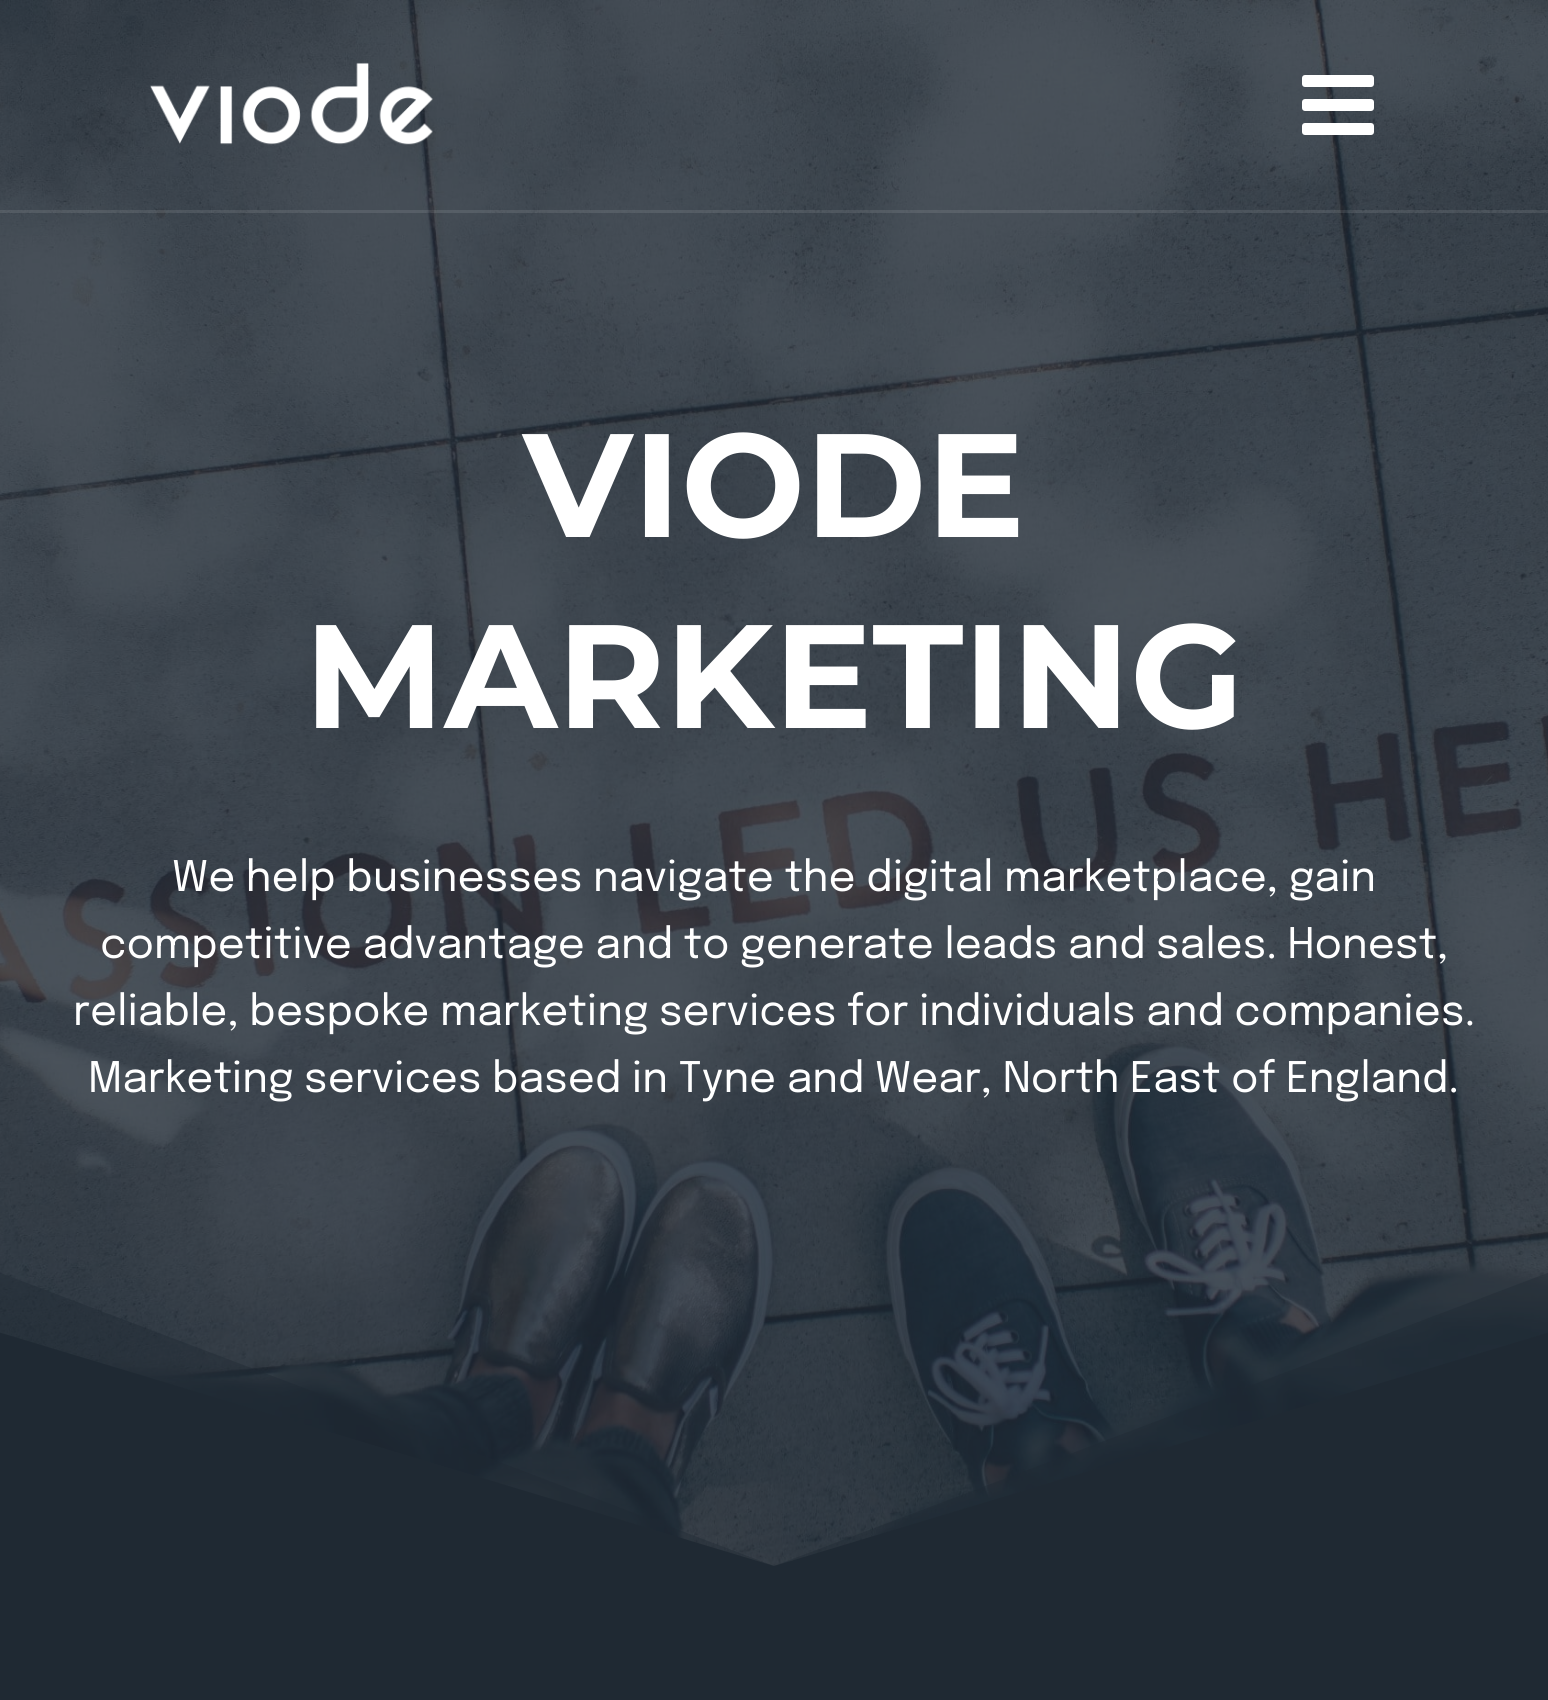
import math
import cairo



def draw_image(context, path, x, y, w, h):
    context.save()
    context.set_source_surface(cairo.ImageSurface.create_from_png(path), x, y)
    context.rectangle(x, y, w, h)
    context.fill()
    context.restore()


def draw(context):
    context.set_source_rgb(31 / 255, 41 / 255, 51 / 255)
    context.paint()
    draw_image(context, "images/3.png", 0, 0, 1548, 1566)
    context.set_source_rgba(1, 1, 1, 0.1)
    context.rectangle(0, 210, 1548, 3)
    context.fill()
    draw_image(context, "images/1.png", 150, 62, 283, 83)
    draw_image(context, "images/2.png", 1302, 75, 72, 60)
    context.set_source_rgba(31 / 255, 41 / 255, 51 / 255, 0.4)
    context.new_path()
    context.move_to(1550, 1272)
    context.line_to(774, 1566)
    context.line_to(-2, 1272)
    context.line_to(-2, 1572)
    context.line_to(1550, 1572)
    context.close_path()
    context.fill()
    context.set_source_rgb(31 / 255, 41 / 255, 51 / 255)
    context.new_path()
    context.move_to(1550, 1332)
    context.line_to(774, 1566)
    context.line_to(-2, 1332)
    context.line_to(-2, 1572)
    context.line_to(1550, 1572)
    context.close_path()
    context.fill()
    context.select_font_face("Montserrat", cairo.FontSlant.NORMAL, cairo.FontWeight.BOLD)
    context.set_font_size(147)
    context.set_source_rgb(1, 1, 1)
    context.move_to(523, 537)
    context.show_text("VIODE")
    context.move_to(304, 728)
    context.show_text("MARKETING")
    context.select_font_face("Epilogue")
    context.set_font_size(42)
    context.move_to(172, 891)
    context.show_text("We help businesses navigate the digital marketplace, gain")
    context.move_to(100, 958)
    context.show_text("competitive advantage and to generate leads and sales. Honest,")
    context.move_to(73, 1025)
    context.show_text("reliable, bespoke marketing services for individuals and companies.")
    context.move_to(88, 1092)
    context.show_text("Marketing services based in Tyne and Wear, North East of England.")


surface = cairo.ImageSurface(cairo.Format.RGB24, 1548, 1700)
context = cairo.Context(surface)
options = cairo.FontOptions()
options.set_hint_metrics(cairo.HintMetrics.OFF)
options.set_hint_style(cairo.HintStyle.NONE)
context.set_font_options(options)
context.set_miter_limit(4)
draw(context)
surface.write_to_png("out.png")
